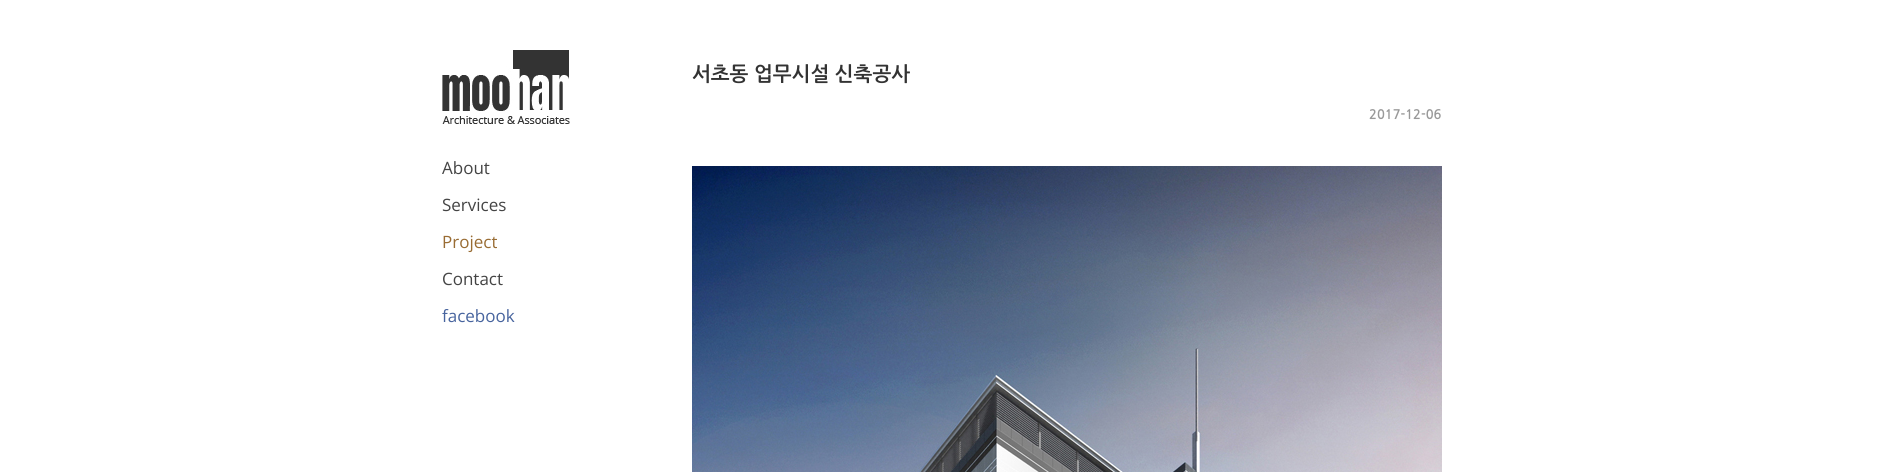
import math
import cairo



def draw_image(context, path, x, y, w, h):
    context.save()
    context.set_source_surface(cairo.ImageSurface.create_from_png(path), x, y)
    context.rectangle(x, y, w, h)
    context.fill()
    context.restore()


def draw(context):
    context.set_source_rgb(1, 1, 1)
    context.paint()
    draw_image(context, "images/1.png", 692, 166, 750, 306)
    draw_image(context, "images/2.png", 442, 50, 128, 74)
    context.select_font_face("NanumGothic", cairo.FontSlant.NORMAL, cairo.FontWeight.BOLD)
    context.set_font_size(20)
    context.set_source_rgb(51 / 255, 51 / 255, 51 / 255)
    context.move_to(692, 81)
    context.show_text("서초동 업무시설 신축공사")
    context.set_font_size(13)
    context.set_source_rgb(153 / 255, 153 / 255, 153 / 255)
    context.move_to(1369, 119)
    context.show_text("2017-12-06")
    context.select_font_face("Open Sans")
    context.set_font_size(17)
    context.set_source_rgb(68 / 255, 68 / 255, 68 / 255)
    context.move_to(442, 174)
    context.show_text("About")
    context.move_to(442, 211)
    context.show_text("Services")
    context.set_source_rgb(153 / 255, 108 / 255, 51 / 255)
    context.move_to(442, 248)
    context.show_text("Project")
    context.set_source_rgb(68 / 255, 68 / 255, 68 / 255)
    context.move_to(442, 285)
    context.show_text("Contact")
    context.set_source_rgb(71 / 255, 100 / 255, 158 / 255)
    context.move_to(442, 322)
    context.show_text("facebook")


surface = cairo.ImageSurface(cairo.Format.RGB24, 1883, 472)
context = cairo.Context(surface)
options = cairo.FontOptions()
options.set_hint_metrics(cairo.HintMetrics.OFF)
options.set_hint_style(cairo.HintStyle.NONE)
context.set_font_options(options)
context.set_miter_limit(4)
draw(context)
surface.write_to_png("out.png")
